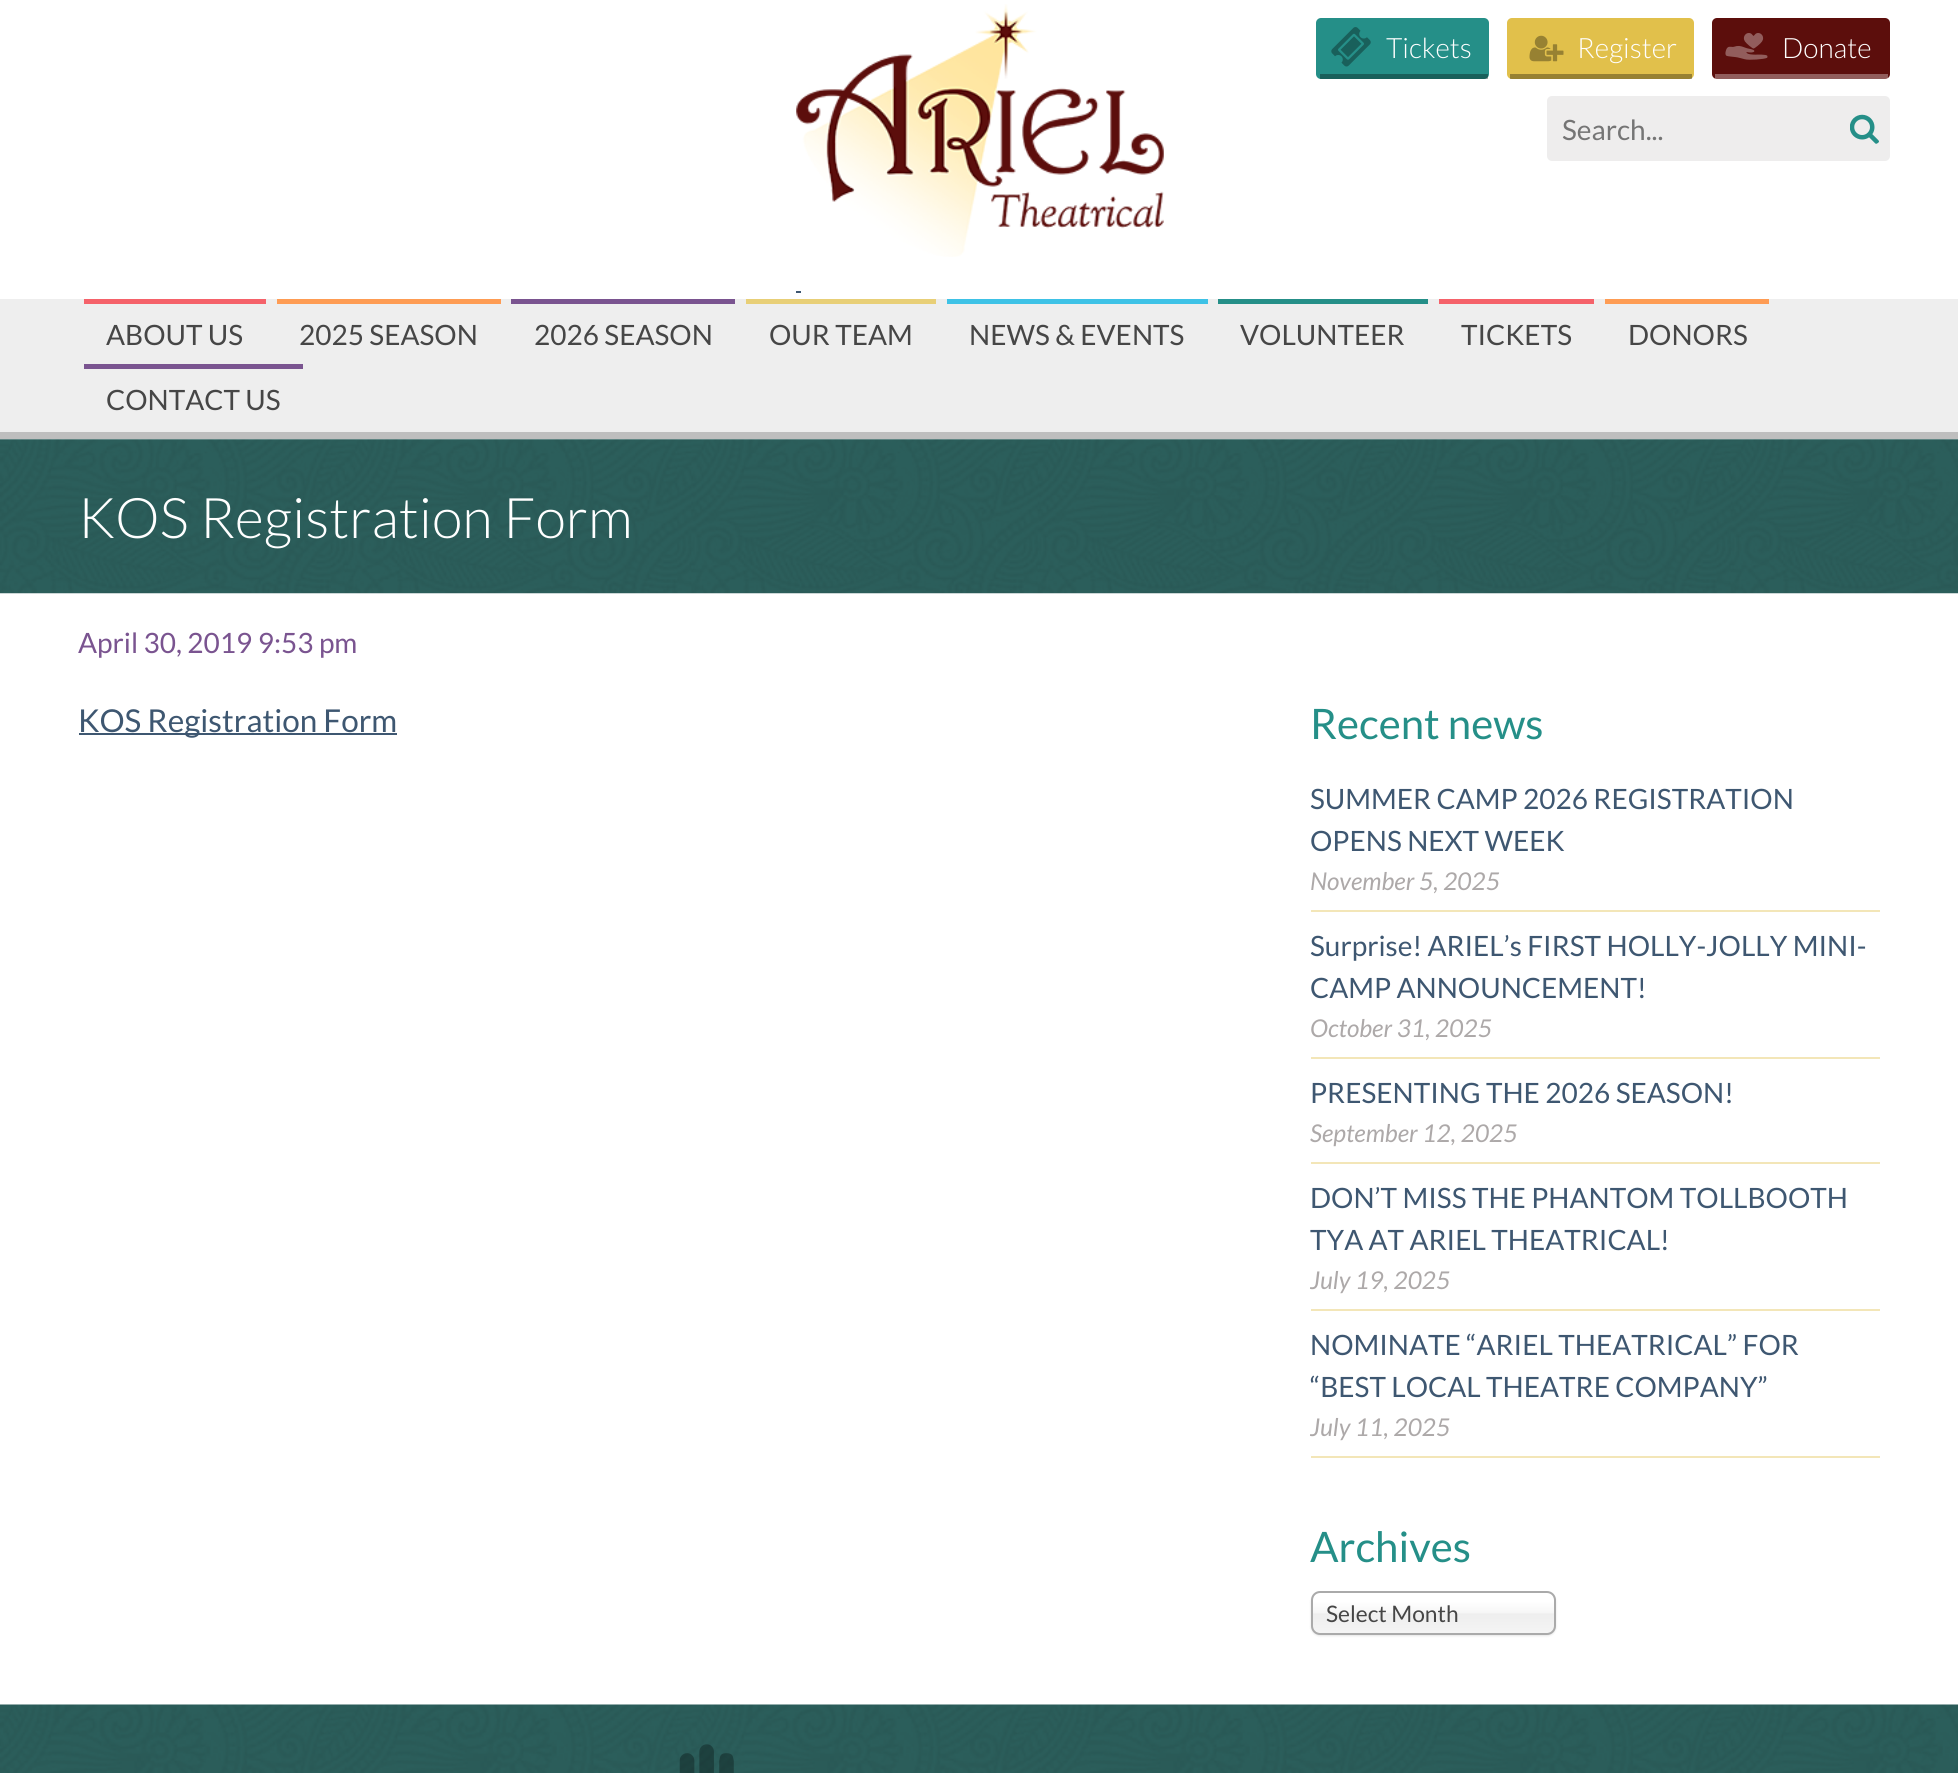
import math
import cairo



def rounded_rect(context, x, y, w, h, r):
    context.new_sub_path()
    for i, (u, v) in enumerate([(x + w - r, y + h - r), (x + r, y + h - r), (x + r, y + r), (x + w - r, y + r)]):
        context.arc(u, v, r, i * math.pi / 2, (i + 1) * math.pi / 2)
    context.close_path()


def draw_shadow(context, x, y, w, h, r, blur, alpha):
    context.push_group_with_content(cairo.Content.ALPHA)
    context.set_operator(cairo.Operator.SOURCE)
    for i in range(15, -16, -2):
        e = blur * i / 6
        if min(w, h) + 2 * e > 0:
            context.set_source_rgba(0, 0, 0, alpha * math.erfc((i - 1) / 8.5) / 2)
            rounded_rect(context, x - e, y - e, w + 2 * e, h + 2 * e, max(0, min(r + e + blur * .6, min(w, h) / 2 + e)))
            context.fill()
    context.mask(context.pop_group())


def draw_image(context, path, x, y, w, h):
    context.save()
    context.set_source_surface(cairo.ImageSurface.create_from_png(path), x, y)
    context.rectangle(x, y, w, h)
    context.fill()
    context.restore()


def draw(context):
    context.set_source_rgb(1, 1, 1)
    context.paint()
    draw_image(context, "images/1.png", 796, 4, 368, 253)
    context.set_source_rgb(62 / 255, 87 / 255, 113 / 255)
    context.rectangle(796, 291, 5, 2)
    context.fill()
    context.set_source_rgb(37 / 255, 143 / 255, 136 / 255)
    rounded_rect(context, 1316, 18, 173, 61, 5)
    context.fill()
    context.set_source_rgba(0, 0, 0, 0.33)
    context.rectangle(1320, 74, 168, 5)
    context.fill()
    draw_image(context, "images/2.png", 1331, 27, 40, 40)
    context.set_source_rgb(225 / 255, 192 / 255, 75 / 255)
    rounded_rect(context, 1507, 18, 187, 61, 5)
    context.fill()
    context.set_source_rgba(0, 0, 0, 0.33)
    context.rectangle(1510, 74, 182, 5)
    context.fill()
    draw_image(context, "images/3.png", 1529, 35, 35, 27)
    context.set_source_rgb(92 / 255, 14 / 255, 12 / 255)
    rounded_rect(context, 1712, 18, 178, 61, 5)
    context.fill()
    context.set_source_rgba(1, 1, 1, 0.33)
    context.rectangle(1715, 74, 173, 5)
    context.fill()
    draw_image(context, "images/4.png", 1725, 33, 43, 27)
    context.set_source_rgb(238 / 255, 237 / 255, 237 / 255)
    rounded_rect(context, 1547, 96, 343, 65, 5)
    context.fill()
    draw_image(context, "images/5.png", 1850, 114, 29, 30)
    context.set_source_rgb(238 / 255, 238 / 255, 238 / 255)
    context.rectangle(0, 299, 1958, 133)
    context.fill()
    context.set_source_rgb(190 / 255, 190 / 255, 190 / 255)
    context.rectangle(0, 432, 1958, 7)
    context.fill()
    context.set_source_rgb(245 / 255, 98 / 255, 106 / 255)
    context.rectangle(84, 299, 182, 5)
    context.fill()
    context.set_source_rgb(254 / 255, 156 / 255, 84 / 255)
    context.rectangle(277, 299, 224, 5)
    context.fill()
    context.set_source_rgb(122 / 255, 84 / 255, 144 / 255)
    context.rectangle(511, 299, 224, 5)
    context.fill()
    context.set_source_rgb(232 / 255, 207 / 255, 119 / 255)
    context.rectangle(746, 299, 190, 5)
    context.fill()
    context.set_source_rgb(62 / 255, 194 / 255, 230 / 255)
    context.rectangle(947, 299, 261, 5)
    context.fill()
    context.set_source_rgb(37 / 255, 143 / 255, 136 / 255)
    context.rectangle(1218, 299, 210, 5)
    context.fill()
    context.set_source_rgb(245 / 255, 98 / 255, 106 / 255)
    context.rectangle(1439, 299, 155, 5)
    context.fill()
    context.set_source_rgb(254 / 255, 156 / 255, 84 / 255)
    context.rectangle(1605, 299, 164, 5)
    context.fill()
    context.set_source_rgb(122 / 255, 84 / 255, 144 / 255)
    context.rectangle(84, 364, 219, 5)
    context.fill()
    draw_image(context, "images/6.png", 0, 439, 1958, 155)
    context.set_source_rgb(62 / 255, 87 / 255, 113 / 255)
    context.rectangle(79, 733, 318, 2)
    context.fill()
    context.set_source_rgb(243 / 255, 230 / 255, 184 / 255)
    context.rectangle(1311, 910, 569, 2)
    context.fill()
    context.rectangle(1311, 1057, 569, 2)
    context.fill()
    context.rectangle(1311, 1162, 569, 2)
    context.fill()
    context.rectangle(1311, 1309, 569, 2)
    context.fill()
    context.rectangle(1311, 1456, 569, 2)
    context.fill()
    context.set_source_rgb(0, 0, 0)
    draw_shadow(context, 1311, 1593, 245, 43, 9, 1, 0.1)
    gradient = cairo.LinearGradient(1433, 1593, 1433, 1633)
    gradient.add_color_stop_rgba(0.2, 1, 1, 1, 1)
    gradient.add_color_stop_rgba(0.5, 246 / 255, 246 / 255, 246 / 255, 1)
    gradient.add_color_stop_rgba(0.52, 238 / 255, 238 / 255, 238 / 255, 1)
    gradient.add_color_stop_rgba(1, 244 / 255, 244 / 255, 244 / 255, 1)
    context.set_source(gradient)
    rounded_rect(context, 1313, 1593, 241, 40, 7)
    context.fill()
    rounded_rect(context, 1312, 1592, 243, 42, 8)
    context.set_source_rgb(170 / 255, 170 / 255, 170 / 255)
    context.stroke()
    draw_image(context, "images/7.png", 0, 1704, 1958, 69)
    draw_image(context, "images/8.png", 679, 1744, 55, 29)
    context.select_font_face("Lato Light")
    context.set_font_size(28)
    context.set_source_rgb(1, 1, 1)
    context.move_to(1386, 58)
    context.show_text("Tickets")
    context.move_to(1577, 58)
    context.show_text("Register")
    context.move_to(1782, 58)
    context.show_text("Donate")
    context.select_font_face("Lato")
    context.set_source_rgb(117 / 255, 117 / 255, 117 / 255)
    context.move_to(1562, 140)
    context.show_text("Search...")
    context.set_source_rgb(70 / 255, 70 / 255, 70 / 255)
    context.move_to(106, 345)
    context.show_text("ABOUT US")
    context.move_to(299, 345)
    context.show_text("2025 SEASON")
    context.move_to(534, 345)
    context.show_text("2026 SEASON")
    context.move_to(769, 345)
    context.show_text("OUR TEAM")
    context.move_to(969, 345)
    context.show_text("NEWS & EVENTS")
    context.move_to(1240, 345)
    context.show_text("VOLUNTEER")
    context.move_to(1461, 345)
    context.show_text("TICKETS")
    context.move_to(1628, 345)
    context.show_text("DONORS")
    context.move_to(106, 410)
    context.show_text("CONTACT US")
    context.select_font_face("Lato Light")
    context.set_font_size(56)
    context.set_source_rgb(1, 1, 1)
    context.move_to(78, 538)
    context.show_text("KOS Registration Form")
    context.select_font_face("Lato")
    context.set_font_size(28)
    context.set_source_rgb(122 / 255, 84 / 255, 144 / 255)
    context.move_to(78, 653)
    context.show_text("April 30, 2019 9:53 pm")
    context.set_font_size(31.5)
    context.set_source_rgb(62 / 255, 87 / 255, 113 / 255)
    context.move_to(78, 732)
    context.show_text("KOS Registration Form")
    context.set_font_size(42)
    context.set_source_rgb(37 / 255, 143 / 255, 136 / 255)
    context.move_to(1310, 739)
    context.show_text("Recent news")
    context.set_font_size(28)
    context.set_source_rgb(62 / 255, 87 / 255, 113 / 255)
    context.move_to(1310, 809)
    context.show_text("SUMMER CAMP 2026 REGISTRATION")
    context.move_to(1310, 851)
    context.show_text("OPENS NEXT WEEK")
    context.select_font_face("Lato", cairo.FontSlant.ITALIC)
    context.set_font_size(24.5)
    context.set_source_rgb(173 / 255, 169 / 255, 169 / 255)
    context.move_to(1310, 890)
    context.show_text("November 5, 2025")
    context.select_font_face("Lato")
    context.set_font_size(28)
    context.set_source_rgb(62 / 255, 87 / 255, 113 / 255)
    context.move_to(1310, 956)
    context.show_text("Surprise! ARIEL’s FIRST HOLLY-JOLLY MINI-")
    context.move_to(1310, 998)
    context.show_text("CAMP ANNOUNCEMENT!")
    context.select_font_face("Lato", cairo.FontSlant.ITALIC)
    context.set_font_size(24.5)
    context.set_source_rgb(173 / 255, 169 / 255, 169 / 255)
    context.move_to(1310, 1037)
    context.show_text("October 31, 2025")
    context.select_font_face("Lato")
    context.set_font_size(28)
    context.set_source_rgb(62 / 255, 87 / 255, 113 / 255)
    context.move_to(1310, 1103)
    context.show_text("PRESENTING THE 2026 SEASON!")
    context.select_font_face("Lato", cairo.FontSlant.ITALIC)
    context.set_font_size(24.5)
    context.set_source_rgb(173 / 255, 169 / 255, 169 / 255)
    context.move_to(1310, 1142)
    context.show_text("September 12, 2025")
    context.select_font_face("Lato")
    context.set_font_size(28)
    context.set_source_rgb(62 / 255, 87 / 255, 113 / 255)
    context.move_to(1310, 1208)
    context.show_text("DON’T MISS THE PHANTOM TOLLBOOTH")
    context.move_to(1310, 1250)
    context.show_text("TYA AT ARIEL THEATRICAL!")
    context.select_font_face("Lato", cairo.FontSlant.ITALIC)
    context.set_font_size(24.5)
    context.set_source_rgb(173 / 255, 169 / 255, 169 / 255)
    context.move_to(1310, 1289)
    context.show_text("July 19, 2025")
    context.select_font_face("Lato")
    context.set_font_size(28)
    context.set_source_rgb(62 / 255, 87 / 255, 113 / 255)
    context.move_to(1310, 1355)
    context.show_text("NOMINATE “ARIEL THEATRICAL” FOR")
    context.move_to(1310, 1397)
    context.show_text("“BEST LOCAL THEATRE COMPANY”")
    context.select_font_face("Lato", cairo.FontSlant.ITALIC)
    context.set_font_size(24.5)
    context.set_source_rgb(173 / 255, 169 / 255, 169 / 255)
    context.move_to(1310, 1436)
    context.show_text("July 11, 2025")
    context.select_font_face("Lato")
    context.set_font_size(42)
    context.set_source_rgb(37 / 255, 143 / 255, 136 / 255)
    context.move_to(1310, 1562)
    context.show_text("Archives")
    context.set_font_size(22.75)
    context.set_source_rgb(70 / 255, 70 / 255, 70 / 255)
    context.move_to(1326, 1622)
    context.show_text("Select Month")


surface = cairo.ImageSurface(cairo.Format.RGB24, 1958, 1773)
context = cairo.Context(surface)
options = cairo.FontOptions()
options.set_hint_metrics(cairo.HintMetrics.OFF)
options.set_hint_style(cairo.HintStyle.NONE)
context.set_font_options(options)
context.set_miter_limit(4)
draw(context)
surface.write_to_png("out.png")
